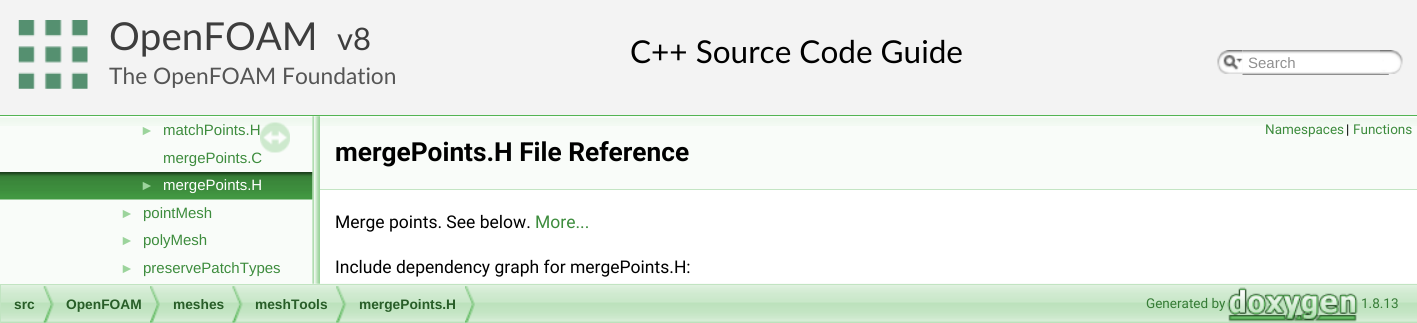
import math
import cairo



def draw_image(context, path, x, y, w, h):
    context.save()
    context.set_source_surface(cairo.ImageSurface.create_from_png(path), x, y)
    context.rectangle(x, y, w, h)
    context.fill()
    context.restore()


def draw(context):
    context.set_source_rgb(1, 1, 1)
    context.paint()
    context.set_source_rgb(243 / 255, 243 / 255, 243 / 255)
    context.rectangle(0, 0, 1417, 115)
    context.fill()
    context.set_source_rgb(83 / 255, 180 / 255, 83 / 255)
    context.rectangle(0, 115, 1417, 1)
    context.fill()
    draw_image(context, "images/1.png", 18, 20, 70, 69)
    draw_image(context, "images/2.png", 1217, 50, 26, 24)
    draw_image(context, "images/3.png", 1223, 54, 20, 16)
    draw_image(context, "images/4.png", 1242, 50, 147, 25)
    draw_image(context, "images/5.png", 1380, 50, 23, 24)
    draw_image(context, "images/11.png", 1, 283, 1416, 40)
    context.set_source_rgb(249 / 255, 252 / 255, 249 / 255)
    context.rectangle(0, 116, 313, 168)
    context.fill()
    draw_image(context, "images/6.png", 0, 116, 313, 10)
    draw_image(context, "images/8.png", 0, 172, 313, 28)
    draw_image(context, "images/9.png", 312, 116, 8, 168)
    context.rectangle(320, 116, 1097, 73)
    context.fill()
    draw_image(context, "images/10.png", 320, 118, 1097, 8)
    context.set_source_rgb(196 / 255, 229 / 255, 196 / 255)
    context.rectangle(320, 189, 1097, 1)
    context.fill()
    context.rectangle(0.5, 284.5, 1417, 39)
    context.set_source_rgb(194 / 255, 228 / 255, 194 / 255)
    context.set_line_width(1)
    context.stroke()
    draw_image(context, "images/12.png", 43, 286, 11, 37)
    draw_image(context, "images/13.png", 150, 286, 10, 37)
    draw_image(context, "images/14.png", 232, 286, 11, 37)
    draw_image(context, "images/15.png", 336, 286, 11, 37)
    draw_image(context, "images/16.png", 465, 286, 10, 37)
    draw_image(context, "images/17.png", 1227, 287, 131, 35)
    context.select_font_face("Lato")
    context.set_font_size(38.5)
    context.set_source_rgb(61 / 255, 61 / 255, 61 / 255)
    context.move_to(109, 50)
    context.show_text("OpenFOAM")
    context.set_font_size(31)
    context.move_to(337, 50)
    context.show_text("v8")
    context.set_font_size(22.75)
    context.set_source_rgb(85 / 255, 85 / 255, 85 / 255)
    context.move_to(109, 84)
    context.show_text("The OpenFOAM Foundation")
    context.select_font_face("Liberation Sans")
    context.set_font_size(15)
    context.set_source_rgb(144 / 255, 144 / 255, 144 / 255)
    context.move_to(1248, 68)
    context.show_text("Search")
    context.select_font_face("Lato")
    context.set_font_size(31.5)
    context.set_source_rgb(0, 0, 0)
    context.move_to(630, 63)
    context.show_text("C++ Source Code Guide")
    context.select_font_face("Liberation Sans")
    context.set_font_size(14)
    context.set_source_rgb(156 / 255, 212 / 255, 156 / 255)
    context.move_to(140, 135)
    context.show_text("►")
    context.set_font_size(15)
    context.set_source_rgb(61 / 255, 140 / 255, 61 / 255)
    context.move_to(163, 135)
    context.show_text("matchPoints.H")
    context.move_to(163, 163)
    context.show_text("mergePoints.C")
    draw_image(context, "images/7.png", 260, 122, 30, 31)
    context.set_font_size(14)
    context.set_source_rgb(156 / 255, 212 / 255, 156 / 255)
    context.move_to(140, 190)
    context.show_text("►")
    context.set_font_size(15)
    context.set_source_rgb(1, 1, 1)
    context.move_to(163, 190)
    context.show_text("mergePoints.H")
    context.set_font_size(14)
    context.set_source_rgb(156 / 255, 212 / 255, 156 / 255)
    context.move_to(120, 218)
    context.show_text("►")
    context.set_font_size(15)
    context.set_source_rgb(61 / 255, 140 / 255, 61 / 255)
    context.move_to(143, 218)
    context.show_text("pointMesh")
    context.set_font_size(14)
    context.set_source_rgb(156 / 255, 212 / 255, 156 / 255)
    context.move_to(120, 245)
    context.show_text("►")
    context.set_font_size(15)
    context.set_source_rgb(61 / 255, 140 / 255, 61 / 255)
    context.move_to(143, 245)
    context.show_text("polyMesh")
    context.set_font_size(14)
    context.set_source_rgb(156 / 255, 212 / 255, 156 / 255)
    context.move_to(120, 273)
    context.show_text("►")
    context.set_font_size(15)
    context.set_source_rgb(61 / 255, 140 / 255, 61 / 255)
    context.move_to(143, 273)
    context.show_text("preservePatchTypes")
    context.select_font_face("Roboto")
    context.set_font_size(13.5)
    context.move_to(1265, 134)
    context.show_text("Namespaces")
    context.set_source_rgb(0, 0, 0)
    context.move_to(1346, 134)
    context.show_text("|")
    context.set_source_rgb(61 / 255, 140 / 255, 61 / 255)
    context.move_to(1353, 134)
    context.show_text("Functions")
    context.select_font_face("Roboto", cairo.FontSlant.NORMAL, cairo.FontWeight.BOLD)
    context.set_font_size(26.25)
    context.set_source_rgb(0, 0, 0)
    context.move_to(335, 161)
    context.show_text("mergePoints.H File Reference")
    context.select_font_face("Roboto")
    context.set_font_size(17.5)
    context.move_to(335, 228)
    context.show_text("Merge points. See below.")
    context.set_source_rgb(61 / 255, 140 / 255, 61 / 255)
    context.move_to(535, 228)
    context.show_text("More...")
    context.set_source_rgb(0, 0, 0)
    context.move_to(335, 273)
    context.show_text("Include dependency graph for mergePoints.H:")
    context.select_font_face("Liberation Sans", cairo.FontSlant.NORMAL, cairo.FontWeight.BOLD)
    context.set_font_size(13.75)
    context.set_source_rgb(40 / 255, 93 / 255, 40 / 255)
    context.move_to(14, 309)
    context.show_text("src")
    context.move_to(66, 309)
    context.show_text("OpenFOAM")
    context.move_to(173, 309)
    context.show_text("meshes")
    context.move_to(255, 309)
    context.show_text("meshTools")
    context.move_to(359, 309)
    context.show_text("mergePoints.H")
    context.select_font_face("Roboto")
    context.set_font_size(13.5)
    context.set_source_rgb(54 / 255, 124 / 255, 54 / 255)
    context.move_to(1146, 308)
    context.show_text("Generated by")
    context.move_to(1361, 308)
    context.show_text("1.8.13")


surface = cairo.ImageSurface(cairo.Format.RGB24, 1417, 323)
context = cairo.Context(surface)
options = cairo.FontOptions()
options.set_hint_metrics(cairo.HintMetrics.OFF)
options.set_hint_style(cairo.HintStyle.NONE)
context.set_font_options(options)
context.set_miter_limit(4)
draw(context)
surface.write_to_png("out.png")
